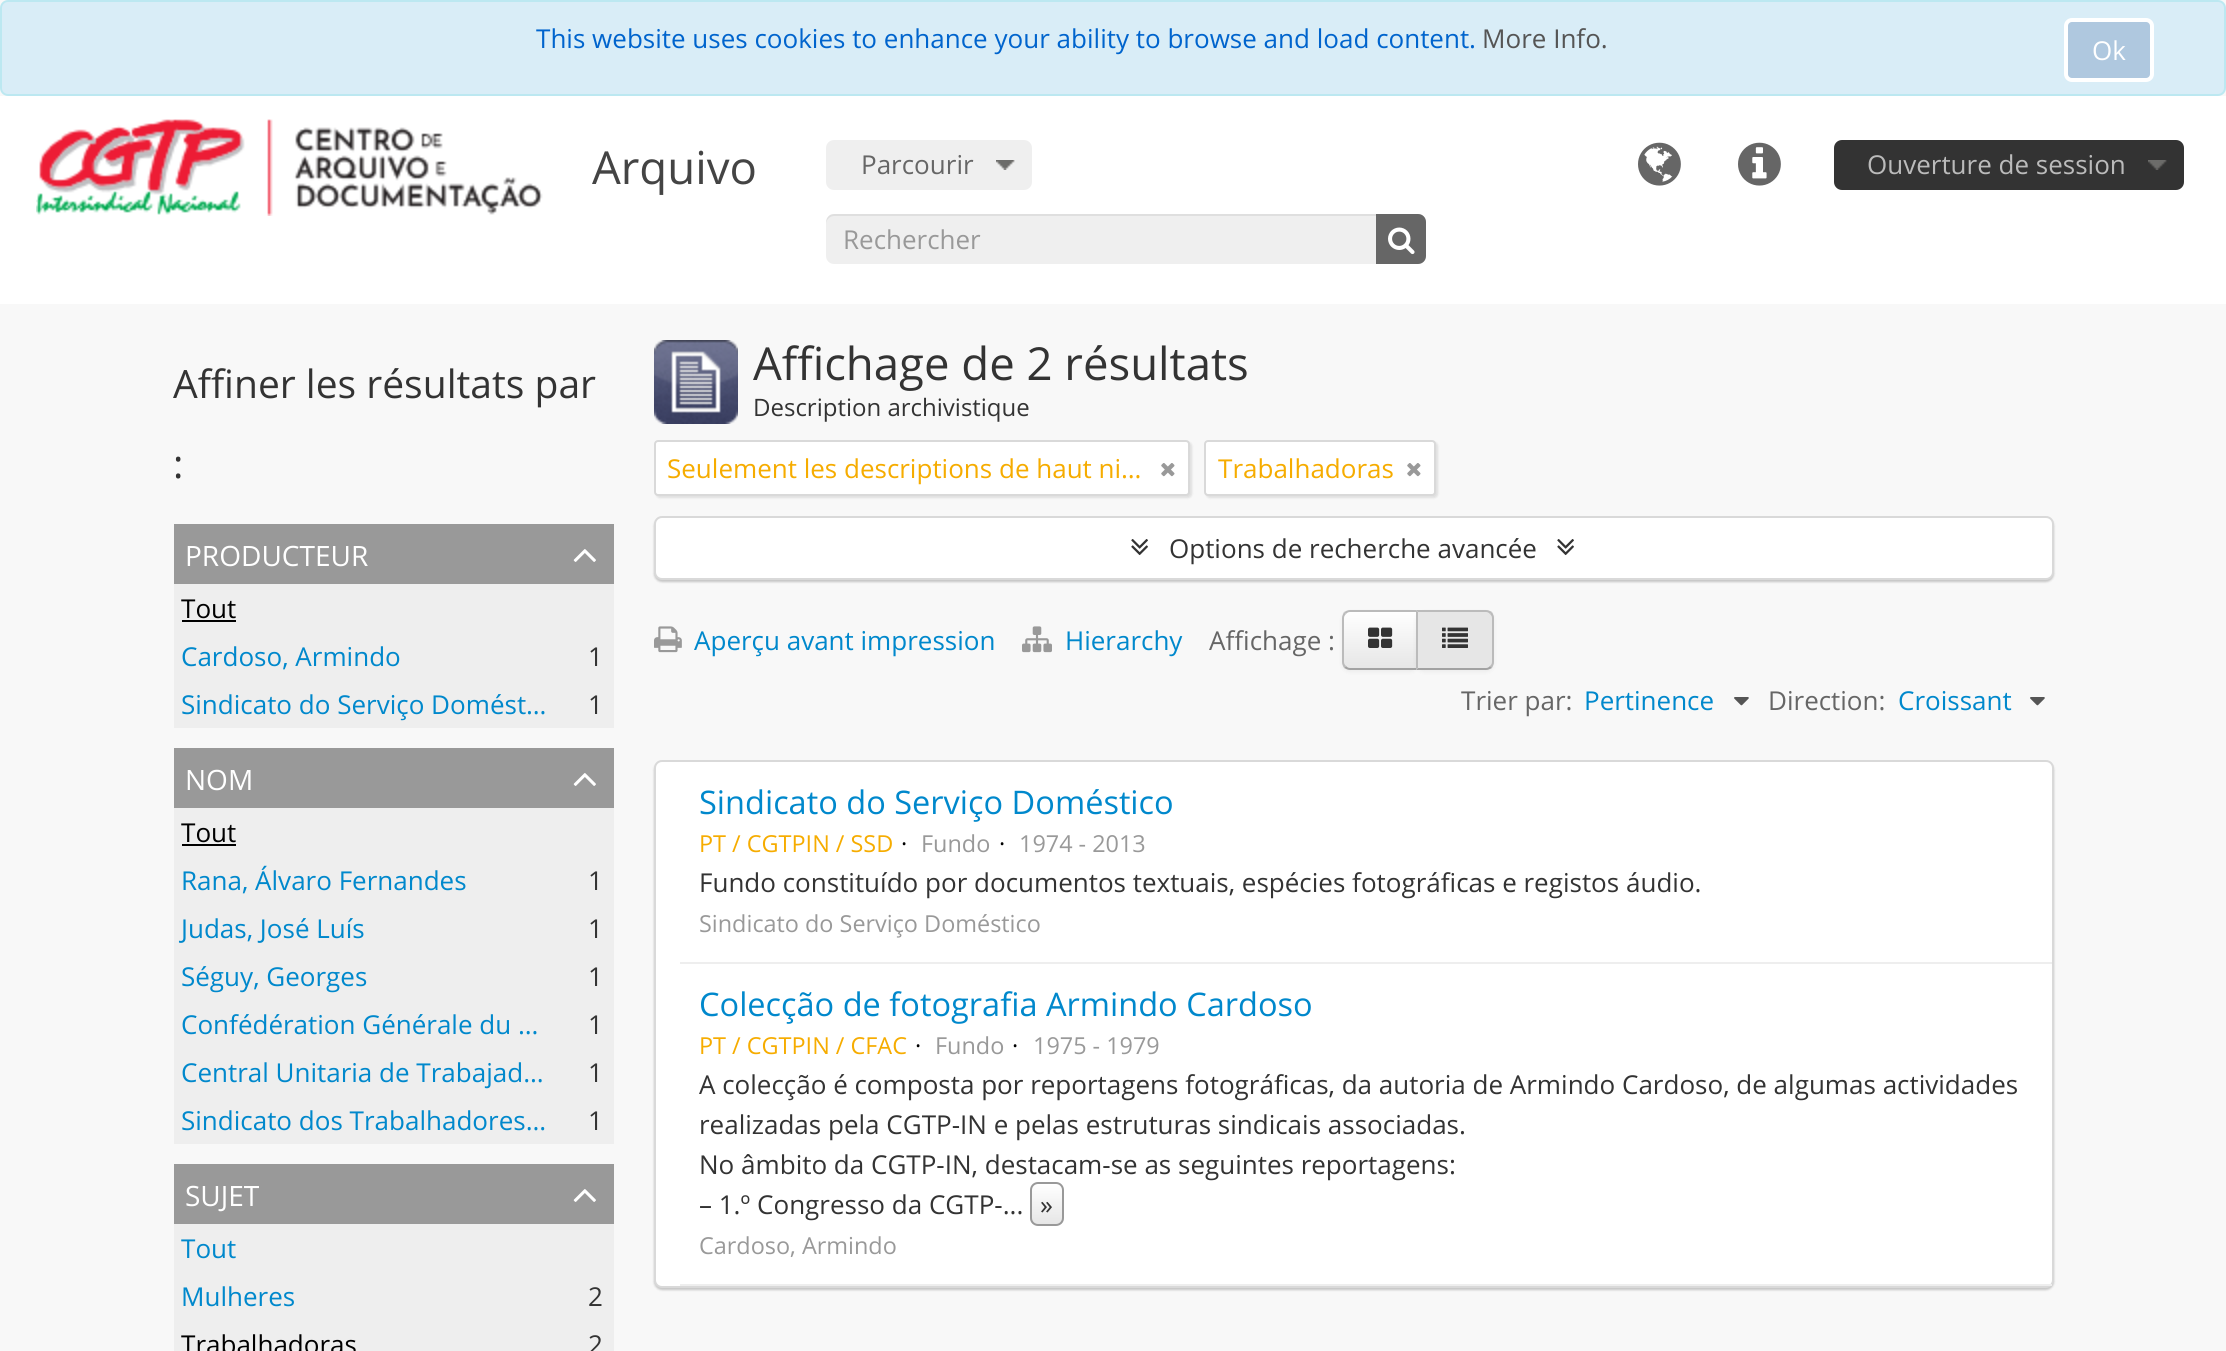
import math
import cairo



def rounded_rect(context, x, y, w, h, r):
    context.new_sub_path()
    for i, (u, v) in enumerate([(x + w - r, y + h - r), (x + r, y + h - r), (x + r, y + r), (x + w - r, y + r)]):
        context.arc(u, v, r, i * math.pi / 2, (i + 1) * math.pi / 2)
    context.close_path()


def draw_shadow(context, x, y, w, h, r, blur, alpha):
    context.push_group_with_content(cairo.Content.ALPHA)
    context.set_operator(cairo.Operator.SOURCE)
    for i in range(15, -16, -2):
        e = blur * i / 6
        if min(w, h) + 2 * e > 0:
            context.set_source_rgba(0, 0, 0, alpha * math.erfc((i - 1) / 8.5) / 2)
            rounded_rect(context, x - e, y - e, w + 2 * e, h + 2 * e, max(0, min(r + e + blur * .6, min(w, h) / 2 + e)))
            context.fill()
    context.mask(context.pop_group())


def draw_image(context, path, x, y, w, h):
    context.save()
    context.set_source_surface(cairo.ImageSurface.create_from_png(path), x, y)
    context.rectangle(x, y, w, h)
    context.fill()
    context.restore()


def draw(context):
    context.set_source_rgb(248 / 255, 248 / 255, 248 / 255)
    context.paint()
    context.set_source_rgb(217 / 255, 237 / 255, 247 / 255)
    rounded_rect(context, 1, 1, 2224, 94, 7)
    context.fill_preserve()
    context.set_source_rgb(188 / 255, 232 / 255, 241 / 255)
    context.stroke()
    context.set_source_rgb(175 / 255, 200 / 255, 223 / 255)
    rounded_rect(context, 2066, 20, 86, 60, 6)
    context.fill_preserve()
    context.set_source_rgb(1, 1, 1)
    context.set_line_width(4)
    context.stroke()
    context.rectangle(0, 96, 2226, 208)
    context.fill()
    draw_image(context, "images/1.png", 36, 119, 507, 97)
    context.set_source_rgb(239 / 255, 239 / 255, 239 / 255)
    rounded_rect(context, 826, 140, 206, 50, 8)
    context.fill()
    draw_image(context, "images/2.png", 996, 160, 19, 10)
    rounded_rect(context, 826, 214, 600, 50, 8)
    context.fill()
    context.set_source_rgba(0, 0, 0, 0.07)
    context.new_path()
    context.move_to(834, 216)
    context.line_to(1418, 216)
    context.curve_to(1422, 216, 1426, 220, 1426, 224)
    context.curve_to(1426, 219, 1424, 214, 1418, 214)
    context.line_to(834, 214)
    context.curve_to(828, 214, 826, 219, 826, 224)
    context.curve_to(826, 220, 830, 216, 834, 216)
    context.close_path()
    context.fill()
    context.set_source_rgb(102 / 255, 102 / 255, 102 / 255)
    context.new_path()
    context.move_to(1376, 214)
    context.line_to(1418, 214)
    context.curve_to(1422.5, 214, 1426, 217.5, 1426, 222)
    context.line_to(1426, 256)
    context.curve_to(1426, 260.5, 1422.5, 264, 1418, 264)
    context.line_to(1376, 264)
    context.close_path()
    context.fill()
    draw_image(context, "images/3.png", 1388, 227, 27, 28)
    draw_image(context, "images/4.png", 1638, 142, 43, 44)
    draw_image(context, "images/5.png", 1738, 142, 43, 44)
    context.set_source_rgb(51 / 255, 51 / 255, 51 / 255)
    rounded_rect(context, 1834, 140, 350, 50, 8)
    context.fill()
    draw_image(context, "images/6.png", 2148, 160, 19, 10)
    context.set_source_rgb(153 / 255, 153 / 255, 153 / 255)
    context.rectangle(174, 524, 440, 60)
    context.fill()
    draw_image(context, "images/7.png", 573, 549, 23, 13)
    context.set_source_rgb(238 / 255, 238 / 255, 238 / 255)
    context.rectangle(174, 584, 440, 144)
    context.fill()
    context.set_source_rgb(0, 0, 0)
    context.rectangle(182, 620, 54, 2)
    context.fill()
    context.set_source_rgb(153 / 255, 153 / 255, 153 / 255)
    context.rectangle(174, 748, 440, 60)
    context.fill()
    draw_image(context, "images/7.png", 573, 773, 23, 13)
    context.set_source_rgb(238 / 255, 238 / 255, 238 / 255)
    context.rectangle(174, 808, 440, 336)
    context.fill()
    context.set_source_rgb(0, 0, 0)
    context.rectangle(182, 844, 54, 2)
    context.fill()
    context.set_source_rgb(153 / 255, 153 / 255, 153 / 255)
    context.rectangle(174, 1164, 440, 60)
    context.fill()
    draw_image(context, "images/7.png", 573, 1189, 23, 13)
    context.set_source_rgb(238 / 255, 238 / 255, 238 / 255)
    context.rectangle(174, 1224, 440, 127)
    context.fill()
    draw_image(context, "images/8.png", 654, 340, 84, 84)
    context.set_source_rgb(0, 0, 0)
    draw_shadow(context, 656, 442, 536, 56, 4, 1, 0.1)
    context.set_source_rgb(1, 1, 1)
    rounded_rect(context, 655, 441, 534, 54, 3)
    context.fill_preserve()
    context.set_source_rgb(217 / 255, 217 / 255, 217 / 255)
    context.set_line_width(2)
    context.stroke()
    draw_image(context, "images/9.png", 1161, 463, 14, 14)
    context.set_source_rgb(0, 0, 0)
    draw_shadow(context, 1206, 442, 232, 56, 4, 1, 0.1)
    context.set_source_rgb(1, 1, 1)
    rounded_rect(context, 1205, 441, 230, 54, 3)
    context.fill_preserve()
    context.set_source_rgb(217 / 255, 217 / 255, 217 / 255)
    context.stroke()
    draw_image(context, "images/9.png", 1407, 463, 14, 14)
    context.set_source_rgb(0, 0, 0)
    draw_shadow(context, 654, 518, 1400, 64, 8, 1, 0.2)
    context.set_source_rgb(1, 1, 1)
    rounded_rect(context, 655, 517, 1398, 62, 7)
    context.fill_preserve()
    context.set_source_rgb(217 / 255, 217 / 255, 217 / 255)
    context.stroke()
    draw_image(context, "images/10.png", 1131, 539, 17, 17)
    draw_image(context, "images/10.png", 1557, 539, 17, 17)
    draw_image(context, "images/11.png", 654, 626, 28, 27)
    draw_image(context, "images/12.png", 1022, 626, 30, 27)
    context.set_source_rgb(0, 0, 0)
    draw_shadow(context, 1342, 612, 76, 60, 8, 2, 0.05)
    context.save()
    context.new_path()
    context.move_to(1350, 610)
    context.line_to(1418, 610)
    context.line_to(1418, 670)
    context.line_to(1350, 670)
    context.curve_to(1345.5, 670, 1342, 666.5, 1342, 662)
    context.line_to(1342, 618)
    context.curve_to(1342, 613.5, 1345.5, 610, 1350, 610)
    context.close_path()
    context.clip()
    gradient = cairo.LinearGradient(1380, 612, 1380, 668)
    gradient.add_color_stop_rgba(0, 1, 1, 1, 1)
    gradient.add_color_stop_rgba(1, 230 / 255, 230 / 255, 230 / 255, 1)
    context.set_source(gradient)
    context.rectangle(1342, 612, 74, 56)
    context.fill()
    context.restore()
    context.set_source_rgb(187 / 255, 187 / 255, 187 / 255)
    context.new_path()
    context.move_to(1350, 610)
    context.curve_to(1348, 610, 1346, 611, 1344, 612)
    context.line_to(1346, 614)
    context.curve_to(1347, 613, 1348, 612, 1350, 612)
    context.line_to(1416, 612)
    context.line_to(1418, 610)
    context.close_path()
    context.fill()
    context.set_source_rgb(162 / 255, 162 / 255, 162 / 255)
    context.new_path()
    context.move_to(1418, 670)
    context.line_to(1416, 668)
    context.line_to(1350, 668)
    context.curve_to(1348, 668, 1347, 667, 1346, 666)
    context.line_to(1344, 668)
    context.curve_to(1346, 669, 1348, 670, 1350, 670)
    context.close_path()
    context.fill()
    context.set_source_rgb(187 / 255, 187 / 255, 187 / 255)
    context.new_path()
    context.move_to(1342, 618)
    context.line_to(1342, 662)
    context.curve_to(1342, 664, 1343, 666, 1344, 668)
    context.line_to(1346, 666)
    context.curve_to(1345, 665, 1344, 664, 1344, 662)
    context.line_to(1344, 618)
    context.curve_to(1344, 616, 1345, 615, 1346, 614)
    context.line_to(1344, 612)
    context.curve_to(1343, 614, 1342, 616, 1342, 618)
    context.close_path()
    context.fill()
    draw_image(context, "images/13.png", 1368, 627, 25, 21)
    context.set_source_rgb(0, 0, 0)
    draw_shadow(context, 1416, 612, 78, 60, 8, 2, 0.05)
    context.set_source_rgb(230 / 255, 230 / 255, 230 / 255)
    context.new_path()
    context.move_to(1416, 610)
    context.line_to(1486, 610)
    context.curve_to(1490.5, 610, 1494, 613.5, 1494, 618)
    context.line_to(1494, 662)
    context.curve_to(1494, 666.5, 1490.5, 670, 1486, 670)
    context.line_to(1416, 670)
    context.close_path()
    context.fill()
    context.set_source_rgb(187 / 255, 187 / 255, 187 / 255)
    context.new_path()
    context.move_to(1416, 610)
    context.line_to(1418, 612)
    context.line_to(1486, 612)
    context.curve_to(1488, 612, 1489, 613, 1490, 614)
    context.line_to(1492, 612)
    context.curve_to(1490, 611, 1488, 610, 1486, 610)
    context.close_path()
    context.fill()
    context.new_path()
    context.move_to(1494, 662)
    context.line_to(1494, 618)
    context.curve_to(1494, 616, 1493, 614, 1492, 612)
    context.line_to(1490, 614)
    context.curve_to(1491, 615, 1492, 616, 1492, 618)
    context.line_to(1492, 662)
    context.curve_to(1492, 664, 1491, 665, 1490, 666)
    context.line_to(1492, 668)
    context.curve_to(1493, 666, 1494, 664, 1494, 662)
    context.close_path()
    context.fill()
    context.set_source_rgb(162 / 255, 162 / 255, 162 / 255)
    context.new_path()
    context.move_to(1486, 670)
    context.curve_to(1488, 670, 1490, 669, 1492, 668)
    context.line_to(1490, 666)
    context.curve_to(1489, 667, 1488, 668, 1486, 668)
    context.line_to(1418, 668)
    context.line_to(1416, 670)
    context.close_path()
    context.fill()
    context.set_source_rgb(187 / 255, 187 / 255, 187 / 255)
    context.new_path()
    context.move_to(1416, 610)
    context.line_to(1416, 670)
    context.line_to(1418, 668)
    context.line_to(1418, 612)
    context.close_path()
    context.fill()
    draw_image(context, "images/14.png", 1442, 627, 26, 21)
    draw_image(context, "images/15.png", 1734, 697, 15, 9)
    draw_image(context, "images/15.png", 2030, 697, 15, 9)
    context.set_source_rgb(0, 0, 0)
    draw_shadow(context, 654, 762, 1400, 528, 8, 1, 0.2)
    context.set_source_rgb(1, 1, 1)
    rounded_rect(context, 655, 761, 1398, 526, 7)
    context.fill_preserve()
    context.set_source_rgb(217 / 255, 217 / 255, 217 / 255)
    context.stroke()
    context.set_source_rgb(238 / 255, 238 / 255, 238 / 255)
    context.rectangle(680, 962, 1372, 2)
    context.fill()
    context.rectangle(680, 1284, 1372, 2)
    context.fill()
    context.save()
    rounded_rect(context, 1030, 1182, 34, 44, 8)
    context.clip()
    gradient = cairo.LinearGradient(1047, 1184, 1047, 1224)
    gradient.add_color_stop_rgba(0, 1, 1, 1, 1)
    gradient.add_color_stop_rgba(1, 230 / 255, 230 / 255, 230 / 255, 1)
    context.set_source(gradient)
    context.rectangle(1030, 1184, 34, 40)
    context.fill()
    context.restore()
    rounded_rect(context, 1031, 1183, 32, 42, 7)
    context.set_source_rgb(153 / 255, 153 / 255, 153 / 255)
    context.stroke()
    context.select_font_face("Open Sans")
    context.set_font_size(26)
    context.set_source_rgb(0, 100 / 255, 205 / 255)
    context.move_to(536, 48)
    context.show_text("This website uses cookies to enhance your ability to browse and load content.")
    context.set_source_rgb(85 / 255, 85 / 255, 85 / 255)
    context.move_to(1482, 48)
    context.show_text("More Info.")
    context.set_source_rgb(1, 1, 1)
    context.move_to(2092, 60)
    context.show_text("Ok")
    context.set_font_size(45.5)
    context.set_source_rgb(68 / 255, 68 / 255, 68 / 255)
    context.move_to(592, 184)
    context.show_text("Arquivo")
    context.set_font_size(26)
    context.set_source_rgb(102 / 255, 102 / 255, 102 / 255)
    context.move_to(861, 174)
    context.show_text("Parcourir")
    context.set_source_rgb(153 / 255, 153 / 255, 153 / 255)
    context.move_to(843, 249)
    context.show_text("Rechercher")
    context.set_source_rgb(187 / 255, 187 / 255, 187 / 255)
    context.move_to(1867, 174)
    context.show_text("Ouverture de session")
    context.set_font_size(39)
    context.set_source_rgb(51 / 255, 51 / 255, 51 / 255)
    context.move_to(173, 398)
    context.show_text("Affiner les résultats par")
    context.move_to(173, 478)
    context.show_text(":")
    context.set_font_size(28)
    context.set_source_rgb(1, 1, 1)
    context.move_to(185, 566)
    context.show_text("PRODUCTEUR")
    context.set_font_size(26)
    context.set_source_rgb(0, 0, 0)
    context.move_to(181, 618)
    context.show_text("Tout")
    context.set_source_rgb(0, 136 / 255, 204 / 255)
    context.move_to(181, 666)
    context.show_text("Cardoso, Armindo")
    context.set_source_rgb(51 / 255, 51 / 255, 51 / 255)
    context.move_to(588, 666)
    context.show_text("1")
    context.set_source_rgb(0, 136 / 255, 204 / 255)
    context.move_to(181, 714)
    context.show_text("Sindicato do Serviço Domést…")
    context.set_source_rgb(51 / 255, 51 / 255, 51 / 255)
    context.move_to(588, 714)
    context.show_text("1")
    context.set_font_size(28)
    context.set_source_rgb(1, 1, 1)
    context.move_to(185, 790)
    context.show_text("NOM")
    context.set_font_size(26)
    context.set_source_rgb(0, 0, 0)
    context.move_to(181, 842)
    context.show_text("Tout")
    context.set_source_rgb(0, 136 / 255, 204 / 255)
    context.move_to(181, 890)
    context.show_text("Rana, Álvaro Fernandes")
    context.set_source_rgb(51 / 255, 51 / 255, 51 / 255)
    context.move_to(588, 890)
    context.show_text("1")
    context.set_source_rgb(0, 136 / 255, 204 / 255)
    context.move_to(181, 938)
    context.show_text("Judas, José Luís")
    context.set_source_rgb(51 / 255, 51 / 255, 51 / 255)
    context.move_to(588, 938)
    context.show_text("1")
    context.set_source_rgb(0, 136 / 255, 204 / 255)
    context.move_to(181, 986)
    context.show_text("Séguy, Georges")
    context.set_source_rgb(51 / 255, 51 / 255, 51 / 255)
    context.move_to(588, 986)
    context.show_text("1")
    context.set_source_rgb(0, 136 / 255, 204 / 255)
    context.move_to(181, 1034)
    context.show_text("Confédération Générale du …")
    context.set_source_rgb(51 / 255, 51 / 255, 51 / 255)
    context.move_to(588, 1034)
    context.show_text("1")
    context.set_source_rgb(0, 136 / 255, 204 / 255)
    context.move_to(181, 1082)
    context.show_text("Central Unitaria de Trabajad…")
    context.set_source_rgb(51 / 255, 51 / 255, 51 / 255)
    context.move_to(588, 1082)
    context.show_text("1")
    context.set_source_rgb(0, 136 / 255, 204 / 255)
    context.move_to(181, 1130)
    context.show_text("Sindicato dos Trabalhadores…")
    context.set_source_rgb(51 / 255, 51 / 255, 51 / 255)
    context.move_to(588, 1130)
    context.show_text("1")
    context.set_font_size(28)
    context.set_source_rgb(1, 1, 1)
    context.move_to(185, 1206)
    context.show_text("SUJET")
    context.set_font_size(26)
    context.set_source_rgb(0, 136 / 255, 204 / 255)
    context.move_to(181, 1258)
    context.show_text("Tout")
    context.move_to(181, 1306)
    context.show_text("Mulheres")
    context.set_source_rgb(51 / 255, 51 / 255, 51 / 255)
    context.move_to(588, 1306)
    context.show_text("2")
    context.set_source_rgb(0, 0, 0)
    context.move_to(181, 1354)
    context.show_text("Trabalhadoras")
    context.set_source_rgb(51 / 255, 51 / 255, 51 / 255)
    context.move_to(588, 1354)
    context.show_text("2")
    context.set_font_size(45.5)
    context.move_to(753, 380)
    context.show_text("Affichage de 2 résultats")
    context.set_font_size(24)
    context.move_to(753, 416)
    context.show_text("Description archivistique")
    context.set_font_size(26)
    context.set_source_rgb(246 / 255, 172 / 255, 0)
    context.move_to(667, 478)
    context.show_text("Seulement les descriptions de haut ni…")
    context.move_to(1218, 478)
    context.show_text("Trabalhadoras")
    context.set_source_rgb(51 / 255, 51 / 255, 51 / 255)
    context.move_to(1169, 558)
    context.show_text("Options de recherche avancée")
    context.set_source_rgb(0, 136 / 255, 204 / 255)
    context.move_to(694, 650)
    context.show_text("Aperçu avant impression")
    context.move_to(1065, 650)
    context.show_text("Hierarchy")
    context.set_source_rgb(102 / 255, 102 / 255, 102 / 255)
    context.move_to(1209, 650)
    context.show_text("Affichage :")
    context.move_to(1461, 710)
    context.show_text("Trier par:")
    context.set_source_rgb(0, 136 / 255, 204 / 255)
    context.move_to(1584, 710)
    context.show_text("Pertinence")
    context.set_source_rgb(102 / 255, 102 / 255, 102 / 255)
    context.move_to(1768, 710)
    context.show_text("Direction:")
    context.set_source_rgb(0, 136 / 255, 204 / 255)
    context.move_to(1898, 710)
    context.show_text("Croissant")
    context.set_font_size(32.5)
    context.move_to(699, 814)
    context.show_text("Sindicato do Serviço Doméstico")
    context.set_font_size(23.4)
    context.set_source_rgb(246 / 255, 172 / 255, 0)
    context.move_to(699, 852)
    context.show_text("PT / CGTPIN / SSD")
    context.set_source_rgb(0, 0, 0)
    context.move_to(901, 852)
    context.show_text("·")
    context.set_source_rgb(153 / 255, 153 / 255, 153 / 255)
    context.move_to(921, 852)
    context.show_text("Fundo")
    context.set_source_rgb(0, 0, 0)
    context.move_to(999, 852)
    context.show_text("·")
    context.set_source_rgb(153 / 255, 153 / 255, 153 / 255)
    context.move_to(1019, 852)
    context.show_text("1974 - 2013")
    context.set_font_size(26)
    context.set_source_rgb(51 / 255, 51 / 255, 51 / 255)
    context.move_to(699, 892)
    context.show_text("Fundo constituído por documentos textuais, espécies fotográficas e registos áudio.")
    context.set_font_size(23.4)
    context.set_source_rgb(153 / 255, 153 / 255, 153 / 255)
    context.move_to(699, 932)
    context.show_text("Sindicato do Serviço Doméstico")
    context.set_font_size(32.5)
    context.set_source_rgb(0, 136 / 255, 204 / 255)
    context.move_to(699, 1016)
    context.show_text("Colecção de fotografia Armindo Cardoso")
    context.set_font_size(23.4)
    context.set_source_rgb(246 / 255, 172 / 255, 0)
    context.move_to(699, 1054)
    context.show_text("PT / CGTPIN / CFAC")
    context.set_source_rgb(0, 0, 0)
    context.move_to(915, 1054)
    context.show_text("·")
    context.set_source_rgb(153 / 255, 153 / 255, 153 / 255)
    context.move_to(935, 1054)
    context.show_text("Fundo")
    context.set_source_rgb(0, 0, 0)
    context.move_to(1012, 1054)
    context.show_text("·")
    context.set_source_rgb(153 / 255, 153 / 255, 153 / 255)
    context.move_to(1033, 1054)
    context.show_text("1975 - 1979")
    context.set_font_size(26)
    context.set_source_rgb(51 / 255, 51 / 255, 51 / 255)
    context.move_to(699, 1094)
    context.show_text("A colecção é composta por reportagens fotográficas, da autoria de Armindo Cardoso, de algumas actividades")
    context.move_to(699, 1134)
    context.show_text("realizadas pela CGTP-IN e pelas estruturas sindicais associadas.")
    context.move_to(699, 1174)
    context.show_text("No âmbito da CGTP-IN, destacam-se as seguintes reportagens:")
    context.move_to(699, 1214)
    context.show_text("– 1.º Congresso da CGTP-...")
    context.move_to(1040, 1214)
    context.show_text("»")
    context.set_font_size(23.4)
    context.set_source_rgb(153 / 255, 153 / 255, 153 / 255)
    context.move_to(699, 1254)
    context.show_text("Cardoso, Armindo")


surface = cairo.ImageSurface(cairo.Format.RGB24, 2226, 1351)
context = cairo.Context(surface)
options = cairo.FontOptions()
options.set_hint_metrics(cairo.HintMetrics.OFF)
options.set_hint_style(cairo.HintStyle.NONE)
context.set_font_options(options)
context.set_miter_limit(4)
draw(context)
surface.write_to_png("out.png")
